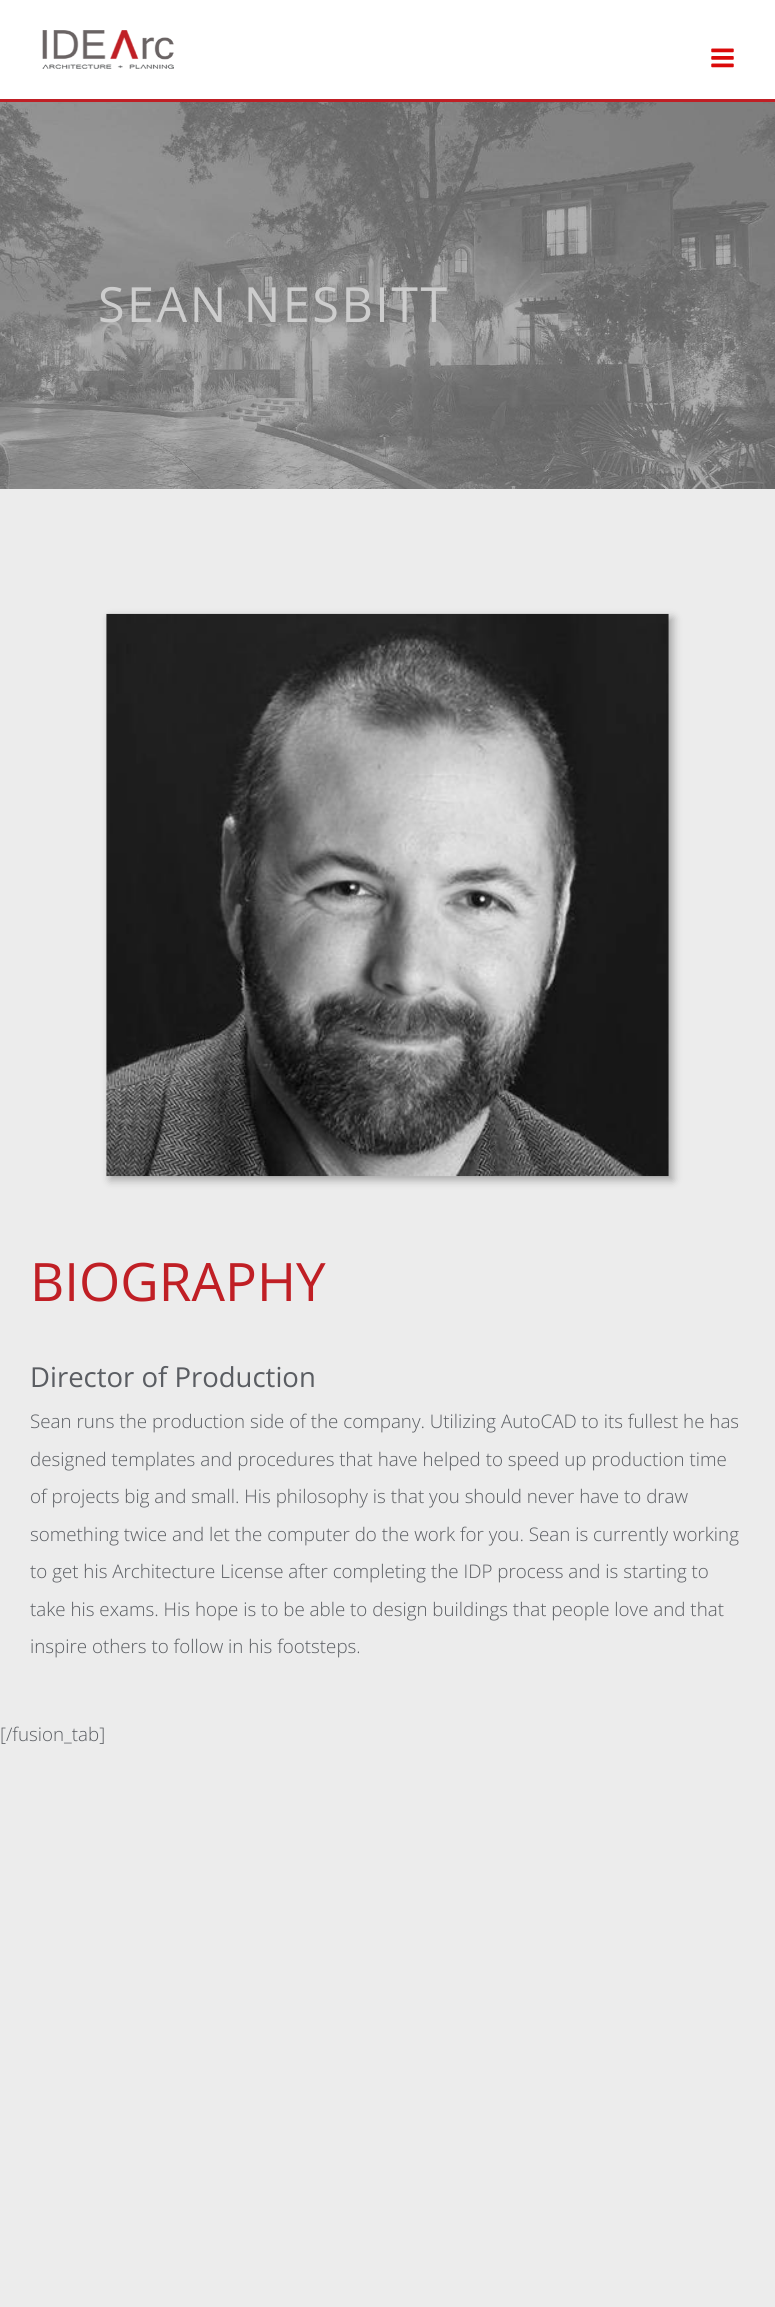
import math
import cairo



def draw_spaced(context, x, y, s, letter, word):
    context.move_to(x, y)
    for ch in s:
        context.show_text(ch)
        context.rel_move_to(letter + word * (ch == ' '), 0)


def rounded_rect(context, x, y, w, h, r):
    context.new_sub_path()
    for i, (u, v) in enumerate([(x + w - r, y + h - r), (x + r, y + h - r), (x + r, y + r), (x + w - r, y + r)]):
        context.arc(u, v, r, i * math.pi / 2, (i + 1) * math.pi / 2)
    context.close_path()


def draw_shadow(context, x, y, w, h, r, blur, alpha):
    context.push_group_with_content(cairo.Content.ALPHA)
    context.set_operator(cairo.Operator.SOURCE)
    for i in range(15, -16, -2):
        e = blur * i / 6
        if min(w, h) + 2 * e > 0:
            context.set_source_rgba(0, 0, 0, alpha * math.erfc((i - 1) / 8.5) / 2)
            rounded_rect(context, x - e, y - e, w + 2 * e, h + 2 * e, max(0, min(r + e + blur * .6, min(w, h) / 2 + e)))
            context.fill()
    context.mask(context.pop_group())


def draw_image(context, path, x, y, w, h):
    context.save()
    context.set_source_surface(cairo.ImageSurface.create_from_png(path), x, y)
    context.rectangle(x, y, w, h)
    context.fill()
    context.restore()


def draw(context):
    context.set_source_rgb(1, 1, 1)
    context.paint()
    context.set_source_rgb(192 / 255, 31 / 255, 37 / 255)
    context.rectangle(0, 99, 775, 3)
    context.fill()
    draw_image(context, "images/1.png", 42, 30, 132, 39)
    draw_image(context, "images/2.png", 711, 48, 23, 20)
    draw_image(context, "images/3.png", 0, 102, 775, 387)
    context.set_source_rgb(236 / 255, 236 / 255, 236 / 255)
    context.rectangle(0, 489, 775, 1818)
    context.fill()
    context.set_source_rgb(0, 0, 0)
    draw_shadow(context, 110, 618, 563, 562, 0, 4.5, 0.3)
    draw_image(context, "images/4.png", 106, 613, 563, 564)
    context.select_font_face("Open Sans")
    context.set_font_size(48.5)
    context.set_source_rgb(205 / 255, 205 / 255, 205 / 255)
    draw_spaced(context, 98, 322, "SEAN NESBITT", 2.5, 0)
    context.set_font_size(53)
    context.set_source_rgb(192 / 255, 31 / 255, 37 / 255)
    context.move_to(30, 1301)
    context.show_text("BIOGRAPHY")
    context.set_font_size(27.5)
    context.set_source_rgb(90 / 255, 93 / 255, 98 / 255)
    context.move_to(30, 1387)
    context.show_text("Director of Production")
    context.select_font_face("Open Sans Light")
    context.set_font_size(18.75)
    context.move_to(30, 1428)
    context.show_text("Sean runs the production side of the company. Utilizing AutoCAD to its fullest he has")
    context.move_to(30, 1466)
    context.show_text("designed templates and procedures that have helped to speed up production time")
    context.move_to(30, 1503)
    context.show_text("of projects big and small. His philosophy is that you should never have to draw")
    context.move_to(30, 1541)
    context.show_text("something twice and let the computer do the work for you. Sean is currently working")
    context.move_to(30, 1578)
    context.show_text("to get his Architecture License after completing the IDP process and is starting to")
    context.move_to(30, 1616)
    context.show_text("take his exams. His hope is to be able to design buildings that people love and that")
    context.move_to(30, 1653)
    context.show_text("inspire others to follow in his footsteps.")
    context.move_to(0, 1741)
    context.show_text("[/fusion_tab]")


surface = cairo.ImageSurface(cairo.Format.RGB24, 775, 2307)
context = cairo.Context(surface)
options = cairo.FontOptions()
options.set_hint_metrics(cairo.HintMetrics.OFF)
options.set_hint_style(cairo.HintStyle.NONE)
context.set_font_options(options)
context.set_miter_limit(4)
draw(context)
surface.write_to_png("out.png")
